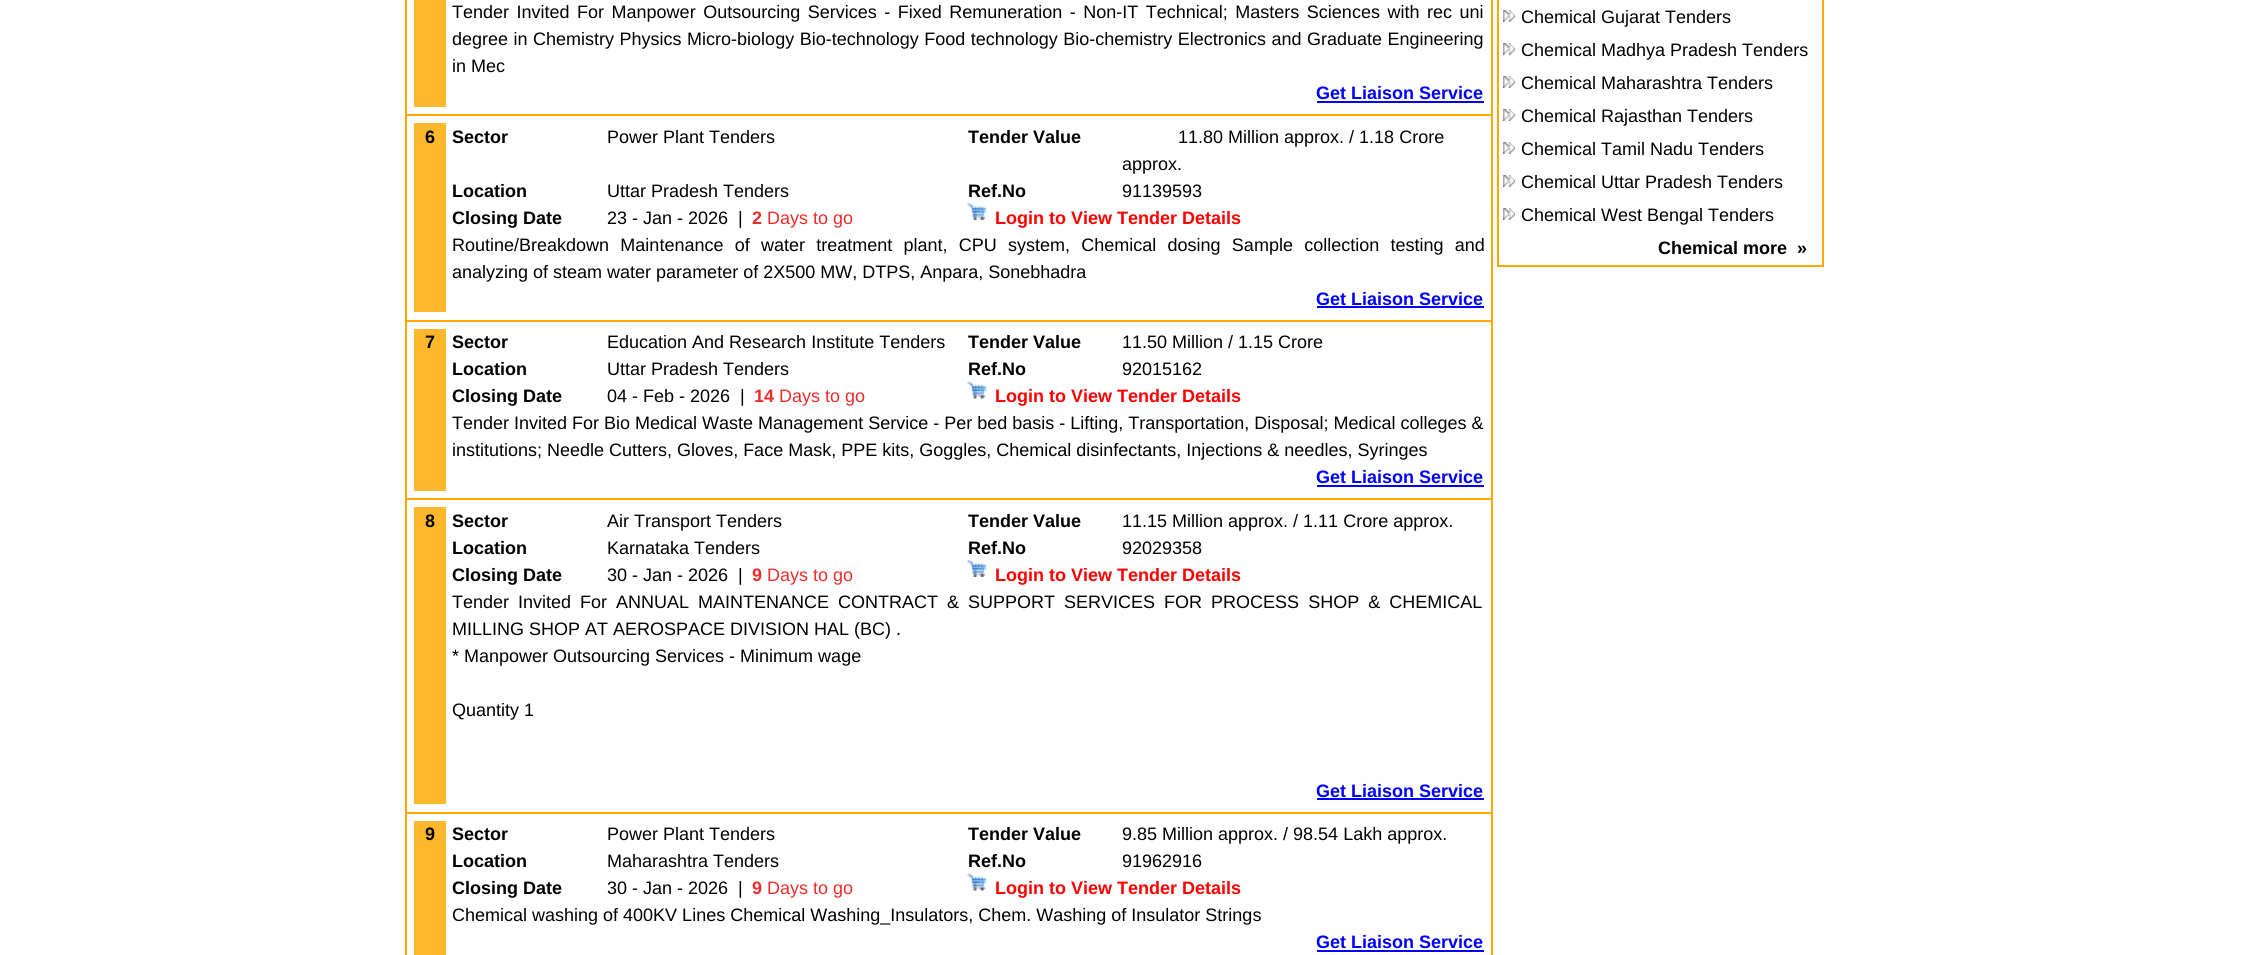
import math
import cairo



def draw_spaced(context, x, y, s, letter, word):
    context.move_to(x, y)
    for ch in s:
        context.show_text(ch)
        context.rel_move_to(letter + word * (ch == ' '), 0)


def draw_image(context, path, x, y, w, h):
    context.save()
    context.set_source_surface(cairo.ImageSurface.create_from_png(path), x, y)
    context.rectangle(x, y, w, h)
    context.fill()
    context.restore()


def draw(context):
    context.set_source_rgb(1, 1, 1)
    context.paint()
    context.set_source_rgb(1, 168 / 255, 0)
    context.rectangle(1491, 0, 2, 955)
    context.fill()
    context.rectangle(405, 0, 2, 955)
    context.fill()
    context.set_source_rgb(1, 183 / 255, 43 / 255)
    context.rectangle(414, 0, 32, 107)
    context.fill()
    context.set_source_rgb(0, 0, 1)
    context.rectangle(1317, 101, 167, 2)
    context.fill()
    context.set_source_rgb(1, 168 / 255, 0)
    context.rectangle(405, 114, 1088, 2)
    context.fill()
    context.set_source_rgb(1, 183 / 255, 43 / 255)
    context.rectangle(414, 123, 32, 189)
    context.fill()
    draw_image(context, "images/1.png", 967, 203, 20, 17)
    context.set_source_rgb(0, 0, 1)
    context.rectangle(1317, 306, 167, 2)
    context.fill()
    context.set_source_rgb(1, 168 / 255, 0)
    context.rectangle(405, 320, 1088, 2)
    context.fill()
    context.set_source_rgb(1, 183 / 255, 43 / 255)
    context.rectangle(414, 329, 32, 162)
    context.fill()
    draw_image(context, "images/2.png", 967, 382, 20, 17)
    context.set_source_rgb(0, 0, 1)
    context.rectangle(1317, 485, 167, 2)
    context.fill()
    context.set_source_rgb(1, 168 / 255, 0)
    context.rectangle(405, 498, 1088, 2)
    context.fill()
    context.set_source_rgb(1, 183 / 255, 43 / 255)
    context.rectangle(414, 507, 32, 297)
    context.fill()
    draw_image(context, "images/1.png", 967, 560, 20, 17)
    context.set_source_rgb(0, 0, 1)
    context.rectangle(1317, 798, 167, 2)
    context.fill()
    context.set_source_rgb(1, 168 / 255, 0)
    context.rectangle(405, 812, 1088, 2)
    context.fill()
    context.set_source_rgb(1, 183 / 255, 43 / 255)
    context.rectangle(414, 821, 32, 134)
    context.fill()
    draw_image(context, "images/2.png", 967, 874, 20, 17)
    context.set_source_rgb(0, 0, 1)
    context.rectangle(1317, 950, 167, 2)
    context.fill()
    context.rectangle(1498, -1, 325, 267)
    context.set_source_rgb(1, 168 / 255, 0)
    context.stroke()
    draw_image(context, "images/3.png", 1503, 10, 12, 12)
    draw_image(context, "images/3.png", 1503, 43, 12, 12)
    draw_image(context, "images/3.png", 1503, 76, 12, 12)
    draw_image(context, "images/3.png", 1503, 109, 12, 12)
    draw_image(context, "images/3.png", 1503, 142, 12, 12)
    draw_image(context, "images/3.png", 1503, 175, 12, 12)
    draw_image(context, "images/3.png", 1503, 208, 12, 12)
    context.select_font_face("Liberation Sans")
    context.set_font_size(18)
    context.set_source_rgb(0, 0, 0)
    draw_spaced(context, 452, 18, "Tender Invited For Manpower Outsourcing Services - Fixed Remuneration - Non-IT Technical; Masters Sciences with rec uni", 0, 2.5)
    draw_spaced(context, 452, 45, "degree in Chemistry Physics Micro-biology Bio-technology Food technology Bio-chemistry Electronics and Graduate Engineering", 0, 0.5)
    context.move_to(452, 72)
    context.show_text("in Mec")
    context.select_font_face("Liberation Sans", cairo.FontSlant.NORMAL, cairo.FontWeight.BOLD)
    context.set_source_rgb(0, 0, 1)
    context.move_to(1316, 99)
    context.show_text("Get Liaison Service")
    context.set_source_rgb(0, 0, 0)
    context.move_to(425, 143)
    context.show_text("6")
    context.move_to(452, 143)
    context.show_text("Sector")
    context.select_font_face("Liberation Sans")
    context.move_to(607, 143)
    context.show_text("Power Plant Tenders")
    context.select_font_face("Liberation Sans", cairo.FontSlant.NORMAL, cairo.FontWeight.BOLD)
    context.move_to(968, 143)
    context.show_text("Tender Value")
    context.select_font_face("Liberation Sans")
    context.move_to(1178, 143)
    context.show_text("11.80 Million approx. / 1.18 Crore")
    context.move_to(1122, 170)
    context.show_text("approx.")
    context.select_font_face("Liberation Sans", cairo.FontSlant.NORMAL, cairo.FontWeight.BOLD)
    context.move_to(452, 197)
    context.show_text("Location")
    context.select_font_face("Liberation Sans")
    context.move_to(607, 197)
    context.show_text("Uttar Pradesh Tenders")
    context.select_font_face("Liberation Sans", cairo.FontSlant.NORMAL, cairo.FontWeight.BOLD)
    context.move_to(968, 197)
    context.show_text("Ref.No")
    context.select_font_face("Liberation Sans")
    context.move_to(1122, 197)
    context.show_text("91139593")
    context.select_font_face("Liberation Sans", cairo.FontSlant.NORMAL, cairo.FontWeight.BOLD)
    context.move_to(452, 224)
    context.show_text("Closing Date")
    context.select_font_face("Liberation Sans")
    context.move_to(607, 224)
    context.show_text("23 - Jan - 2026")
    context.move_to(738, 224)
    context.show_text("|")
    context.select_font_face("Liberation Sans", cairo.FontSlant.NORMAL, cairo.FontWeight.BOLD)
    context.set_source_rgb(238 / 255, 44 / 255, 44 / 255)
    context.move_to(752, 224)
    context.show_text("2")
    context.select_font_face("Liberation Sans")
    context.move_to(767, 224)
    context.show_text("Days to go")
    context.select_font_face("Liberation Sans", cairo.FontSlant.NORMAL, cairo.FontWeight.BOLD)
    context.set_source_rgb(1, 0, 0)
    context.move_to(995, 224)
    context.show_text("Login to View Tender Details")
    context.select_font_face("Liberation Sans")
    context.set_source_rgb(0, 0, 0)
    draw_spaced(context, 452, 251, "Routine/Breakdown Maintenance of water treatment plant, CPU system, Chemical dosing Sample collection testing and", 0, 6.25)
    context.move_to(452, 278)
    context.show_text("analyzing of steam water parameter of 2X500 MW, DTPS, Anpara, Sonebhadra")
    context.select_font_face("Liberation Sans", cairo.FontSlant.NORMAL, cairo.FontWeight.BOLD)
    context.set_source_rgb(0, 0, 1)
    context.move_to(1316, 305)
    context.show_text("Get Liaison Service")
    context.set_source_rgb(0, 0, 0)
    context.move_to(425, 348)
    context.show_text("7")
    context.move_to(452, 348)
    context.show_text("Sector")
    context.select_font_face("Liberation Sans")
    context.move_to(607, 348)
    context.show_text("Education And Research Institute Tenders")
    context.select_font_face("Liberation Sans", cairo.FontSlant.NORMAL, cairo.FontWeight.BOLD)
    context.move_to(968, 348)
    context.show_text("Tender Value")
    context.select_font_face("Liberation Sans")
    context.move_to(1122, 348)
    context.show_text("11.50 Million / 1.15 Crore")
    context.select_font_face("Liberation Sans", cairo.FontSlant.NORMAL, cairo.FontWeight.BOLD)
    context.move_to(452, 375)
    context.show_text("Location")
    context.select_font_face("Liberation Sans")
    context.move_to(607, 375)
    context.show_text("Uttar Pradesh Tenders")
    context.select_font_face("Liberation Sans", cairo.FontSlant.NORMAL, cairo.FontWeight.BOLD)
    context.move_to(968, 375)
    context.show_text("Ref.No")
    context.select_font_face("Liberation Sans")
    context.move_to(1122, 375)
    context.show_text("92015162")
    context.select_font_face("Liberation Sans", cairo.FontSlant.NORMAL, cairo.FontWeight.BOLD)
    context.move_to(452, 402)
    context.show_text("Closing Date")
    context.select_font_face("Liberation Sans")
    context.move_to(607, 402)
    context.show_text("04 - Feb - 2026")
    context.move_to(740, 402)
    context.show_text("|")
    context.select_font_face("Liberation Sans", cairo.FontSlant.NORMAL, cairo.FontWeight.BOLD)
    context.set_source_rgb(238 / 255, 44 / 255, 44 / 255)
    context.move_to(754, 402)
    context.show_text("14")
    context.select_font_face("Liberation Sans")
    context.move_to(779, 402)
    context.show_text("Days to go")
    context.select_font_face("Liberation Sans", cairo.FontSlant.NORMAL, cairo.FontWeight.BOLD)
    context.set_source_rgb(1, 0, 0)
    context.move_to(995, 402)
    context.show_text("Login to View Tender Details")
    context.select_font_face("Liberation Sans")
    context.set_source_rgb(0, 0, 0)
    context.move_to(452, 429)
    context.show_text("Tender Invited For Bio Medical Waste Management Service - Per bed basis - Lifting, Transportation, Disposal; Medical colleges &")
    context.move_to(452, 456)
    context.show_text("institutions; Needle Cutters, Gloves, Face Mask, PPE kits, Goggles, Chemical disinfectants, Injections & needles, Syringes")
    context.select_font_face("Liberation Sans", cairo.FontSlant.NORMAL, cairo.FontWeight.BOLD)
    context.set_source_rgb(0, 0, 1)
    context.move_to(1316, 483)
    context.show_text("Get Liaison Service")
    context.set_source_rgb(0, 0, 0)
    context.move_to(425, 527)
    context.show_text("8")
    context.move_to(452, 527)
    context.show_text("Sector")
    context.select_font_face("Liberation Sans")
    context.move_to(607, 527)
    context.show_text("Air Transport Tenders")
    context.select_font_face("Liberation Sans", cairo.FontSlant.NORMAL, cairo.FontWeight.BOLD)
    context.move_to(968, 527)
    context.show_text("Tender Value")
    context.select_font_face("Liberation Sans")
    context.move_to(1122, 527)
    context.show_text("11.15 Million approx. / 1.11 Crore approx.")
    context.select_font_face("Liberation Sans", cairo.FontSlant.NORMAL, cairo.FontWeight.BOLD)
    context.move_to(452, 554)
    context.show_text("Location")
    context.select_font_face("Liberation Sans")
    context.move_to(607, 554)
    context.show_text("Karnataka Tenders")
    context.select_font_face("Liberation Sans", cairo.FontSlant.NORMAL, cairo.FontWeight.BOLD)
    context.move_to(968, 554)
    context.show_text("Ref.No")
    context.select_font_face("Liberation Sans")
    context.move_to(1122, 554)
    context.show_text("92029358")
    context.select_font_face("Liberation Sans", cairo.FontSlant.NORMAL, cairo.FontWeight.BOLD)
    context.move_to(452, 581)
    context.show_text("Closing Date")
    context.select_font_face("Liberation Sans")
    context.move_to(607, 581)
    context.show_text("30 - Jan - 2026")
    context.move_to(738, 581)
    context.show_text("|")
    context.select_font_face("Liberation Sans", cairo.FontSlant.NORMAL, cairo.FontWeight.BOLD)
    context.set_source_rgb(238 / 255, 44 / 255, 44 / 255)
    context.move_to(752, 581)
    context.show_text("9")
    context.select_font_face("Liberation Sans")
    context.move_to(767, 581)
    context.show_text("Days to go")
    context.select_font_face("Liberation Sans", cairo.FontSlant.NORMAL, cairo.FontWeight.BOLD)
    context.set_source_rgb(1, 0, 0)
    context.move_to(995, 581)
    context.show_text("Login to View Tender Details")
    context.select_font_face("Liberation Sans")
    context.set_source_rgb(0, 0, 0)
    draw_spaced(context, 452, 608, "Tender Invited For", 0, 4)
    draw_spaced(context, 616, 608, "ANNUAL MAINTENANCE CONTRACT & SUPPORT SERVICES FOR PROCESS SHOP & CHEMICAL", 0, 4)
    context.move_to(452, 635)
    context.show_text("MILLING SHOP AT AEROSPACE DIVISION HAL (BC) .")
    context.move_to(452, 662)
    context.show_text("* Manpower Outsourcing Services - Minimum wage")
    context.move_to(452, 716)
    context.show_text("Quantity 1")
    context.select_font_face("Liberation Sans", cairo.FontSlant.NORMAL, cairo.FontWeight.BOLD)
    context.set_source_rgb(0, 0, 1)
    context.move_to(1316, 797)
    context.show_text("Get Liaison Service")
    context.set_source_rgb(0, 0, 0)
    context.move_to(425, 840)
    context.show_text("9")
    context.move_to(452, 840)
    context.show_text("Sector")
    context.select_font_face("Liberation Sans")
    context.move_to(607, 840)
    context.show_text("Power Plant Tenders")
    context.select_font_face("Liberation Sans", cairo.FontSlant.NORMAL, cairo.FontWeight.BOLD)
    context.move_to(968, 840)
    context.show_text("Tender Value")
    context.select_font_face("Liberation Sans")
    context.move_to(1122, 840)
    context.show_text("9.85 Million approx. / 98.54 Lakh approx.")
    context.select_font_face("Liberation Sans", cairo.FontSlant.NORMAL, cairo.FontWeight.BOLD)
    context.move_to(452, 867)
    context.show_text("Location")
    context.select_font_face("Liberation Sans")
    context.move_to(607, 867)
    context.show_text("Maharashtra Tenders")
    context.select_font_face("Liberation Sans", cairo.FontSlant.NORMAL, cairo.FontWeight.BOLD)
    context.move_to(968, 867)
    context.show_text("Ref.No")
    context.select_font_face("Liberation Sans")
    context.move_to(1122, 867)
    context.show_text("91962916")
    context.select_font_face("Liberation Sans", cairo.FontSlant.NORMAL, cairo.FontWeight.BOLD)
    context.move_to(452, 894)
    context.show_text("Closing Date")
    context.select_font_face("Liberation Sans")
    context.move_to(607, 894)
    context.show_text("30 - Jan - 2026")
    context.move_to(738, 894)
    context.show_text("|")
    context.select_font_face("Liberation Sans", cairo.FontSlant.NORMAL, cairo.FontWeight.BOLD)
    context.set_source_rgb(238 / 255, 44 / 255, 44 / 255)
    context.move_to(752, 894)
    context.show_text("9")
    context.select_font_face("Liberation Sans")
    context.move_to(767, 894)
    context.show_text("Days to go")
    context.select_font_face("Liberation Sans", cairo.FontSlant.NORMAL, cairo.FontWeight.BOLD)
    context.set_source_rgb(1, 0, 0)
    context.move_to(995, 894)
    context.show_text("Login to View Tender Details")
    context.select_font_face("Liberation Sans")
    context.set_source_rgb(0, 0, 0)
    context.move_to(452, 921)
    context.show_text("Chemical washing of 400KV Lines Chemical Washing_Insulators, Chem. Washing of Insulator Strings")
    context.select_font_face("Liberation Sans", cairo.FontSlant.NORMAL, cairo.FontWeight.BOLD)
    context.set_source_rgb(0, 0, 1)
    context.move_to(1316, 948)
    context.show_text("Get Liaison Service")
    context.select_font_face("Liberation Sans")
    context.set_source_rgb(0, 0, 0)
    context.move_to(1521, 23)
    context.show_text("Chemical Gujarat Tenders")
    context.move_to(1521, 56)
    context.show_text("Chemical Madhya Pradesh Tenders")
    context.move_to(1521, 89)
    context.show_text("Chemical Maharashtra Tenders")
    context.move_to(1521, 122)
    context.show_text("Chemical Rajasthan Tenders")
    context.move_to(1521, 155)
    context.show_text("Chemical Tamil Nadu Tenders")
    context.move_to(1521, 188)
    context.show_text("Chemical Uttar Pradesh Tenders")
    context.move_to(1521, 221)
    context.show_text("Chemical West Bengal Tenders")
    context.select_font_face("Liberation Sans", cairo.FontSlant.NORMAL, cairo.FontWeight.BOLD)
    context.move_to(1658, 254)
    context.show_text("Chemical more")
    context.move_to(1797, 254)
    context.show_text("»")


surface = cairo.ImageSurface(cairo.Format.RGB24, 2249, 955)
context = cairo.Context(surface)
options = cairo.FontOptions()
options.set_hint_metrics(cairo.HintMetrics.OFF)
options.set_hint_style(cairo.HintStyle.NONE)
context.set_font_options(options)
context.set_miter_limit(4)
draw(context)
surface.write_to_png("out.png")
